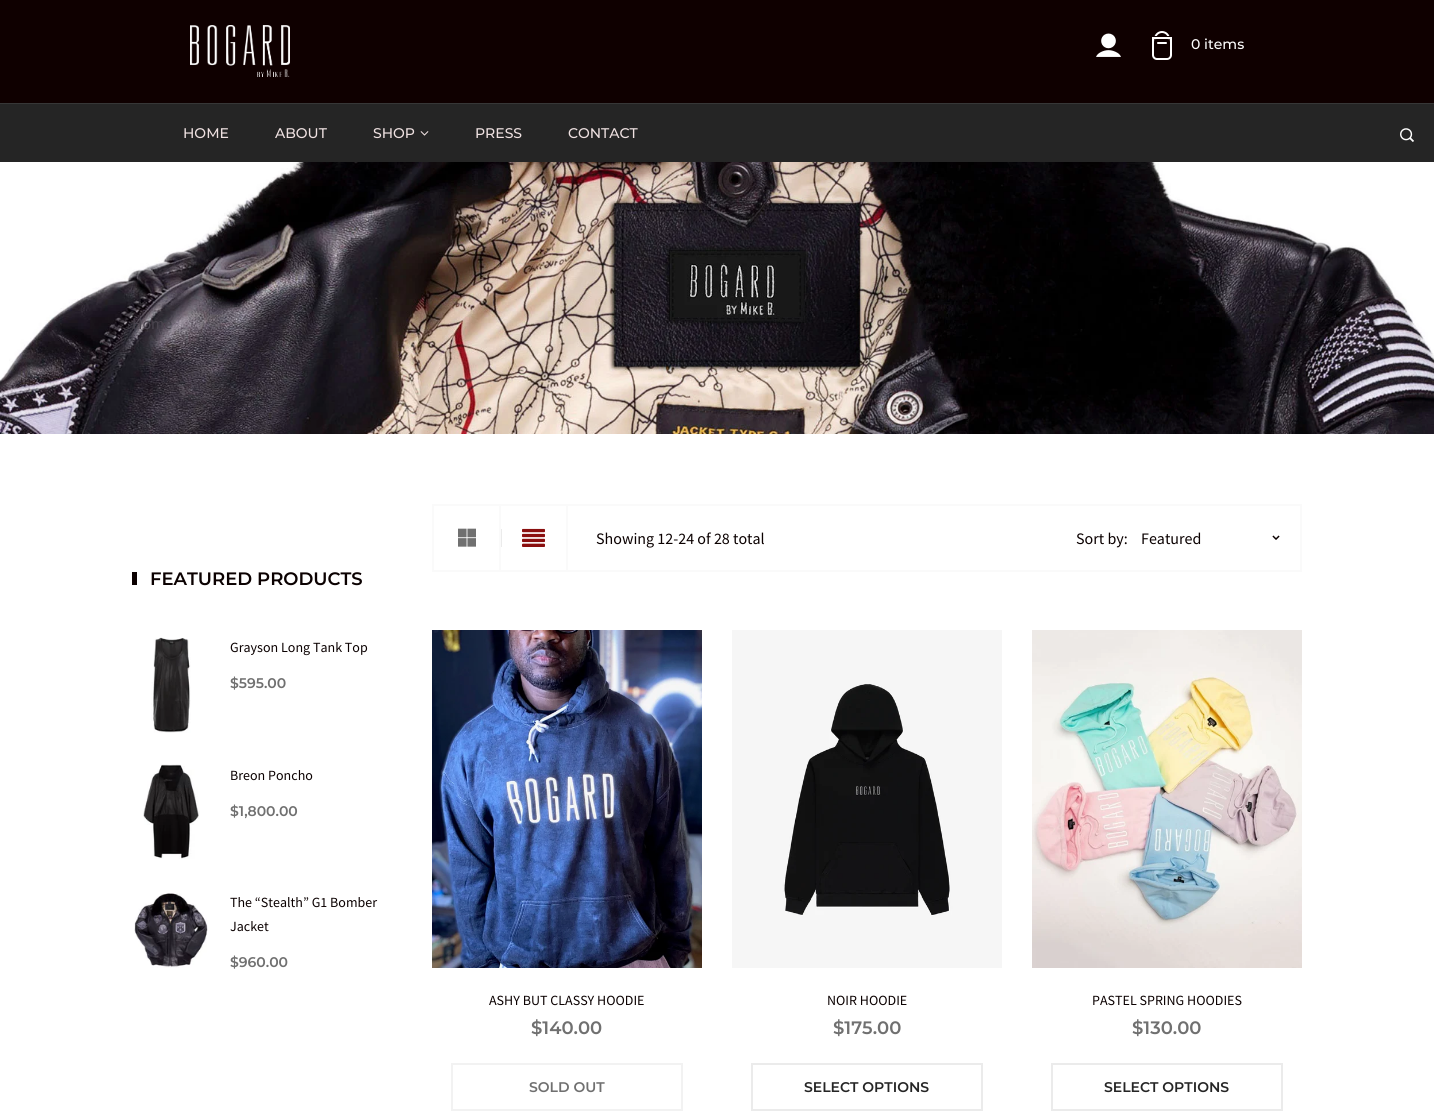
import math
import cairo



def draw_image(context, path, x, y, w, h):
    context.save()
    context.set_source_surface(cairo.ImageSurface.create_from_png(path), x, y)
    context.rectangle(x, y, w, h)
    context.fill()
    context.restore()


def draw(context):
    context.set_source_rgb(1, 1, 1)
    context.paint()
    context.set_source_rgb(15 / 255, 0, 0)
    context.rectangle(0, 0, 1434, 103)
    context.fill()
    draw_image(context, "images/1.png", 190, 25, 100, 52)
    draw_image(context, "images/2.png", 1096, 33, 25, 24)
    draw_image(context, "images/3.png", 1152, 31, 20, 29)
    context.set_source_rgb(37 / 255, 37 / 255, 37 / 255)
    context.rectangle(0, 104, 1434, 58)
    context.fill()
    draw_image(context, "images/4.png", 1400, 128, 14, 14)
    context.set_source_rgb(55 / 255, 55 / 255, 55 / 255)
    context.rectangle(0, 103, 1434, 1)
    context.fill()
    draw_image(context, "images/5.png", 420, 131, 9, 5)
    draw_image(context, "images/6.png", 0, 162, 1434, 272)
    context.set_source_rgb(11 / 255, 1 / 255, 1 / 255)
    context.rectangle(132, 572, 5, 13)
    context.fill()
    draw_image(context, "images/7.png", 151, 637, 40, 96)
    draw_image(context, "images/8.png", 143, 764, 57, 95)
    draw_image(context, "images/9.png", 134, 893, 74, 75)
    context.rectangle(433, 505, 868, 66)
    context.set_source_rgb(250 / 255, 250 / 255, 250 / 255)
    context.stroke()
    draw_image(context, "images/10.png", 458, 528, 18, 19)
    context.rectangle(499, 506, 2, 64)
    context.fill()
    context.set_source_rgb(235 / 255, 235 / 255, 235 / 255)
    context.rectangle(501, 529, 1, 18)
    context.fill()
    draw_image(context, "images/11.png", 522, 528, 23, 19)
    context.set_source_rgb(250 / 255, 250 / 255, 250 / 255)
    context.rectangle(566, 506, 2, 64)
    context.fill()
    draw_image(context, "images/12.png", 1272, 535, 8, 5)
    draw_image(context, "images/13.png", 432, 630, 270, 338)
    context.rectangle(452, 1064, 230, 46)
    context.set_source_rgb(242 / 255, 242 / 255, 242 / 255)
    context.stroke()
    draw_image(context, "images/14.png", 732, 630, 270, 338)
    context.rectangle(752, 1064, 230, 46)
    context.set_source_rgb(235 / 255, 235 / 255, 235 / 255)
    context.stroke()
    draw_image(context, "images/15.png", 1032, 630, 270, 338)
    context.rectangle(1052, 1064, 230, 46)
    context.stroke()
    context.select_font_face("Montserrat Medium")
    context.set_font_size(14)
    context.set_source_rgb(1, 1, 1)
    context.move_to(1191, 49)
    context.show_text("0 items")
    context.set_source_rgb(239 / 255, 225 / 255, 225 / 255)
    context.move_to(183, 138)
    context.show_text("HOME")
    context.move_to(275, 138)
    context.show_text("ABOUT")
    context.move_to(373, 138)
    context.show_text("SHOP")
    context.move_to(475, 138)
    context.show_text("PRESS")
    context.move_to(568, 138)
    context.show_text("CONTACT")
    context.select_font_face("Source Sans Pro")
    context.set_font_size(16)
    context.set_source_rgb(74 / 255, 69 / 255, 78 / 255)
    context.move_to(132, 329)
    context.show_text("Home")
    context.select_font_face("Montserrat SemiBold")
    context.set_font_size(18)
    context.set_source_rgb(11 / 255, 1 / 255, 1 / 255)
    context.move_to(150, 585)
    context.show_text("FEATURED PRODUCTS")
    context.select_font_face("Source Sans Pro")
    context.set_font_size(14)
    context.move_to(230, 652)
    context.show_text("Grayson Long Tank Top")
    context.select_font_face("Montserrat SemiBold")
    context.set_source_rgb(112 / 255, 112 / 255, 112 / 255)
    context.move_to(230, 688)
    context.show_text("$595.00")
    context.select_font_face("Source Sans Pro")
    context.set_source_rgb(11 / 255, 1 / 255, 1 / 255)
    context.move_to(230, 780)
    context.show_text("Breon Poncho")
    context.select_font_face("Montserrat SemiBold")
    context.set_source_rgb(112 / 255, 112 / 255, 112 / 255)
    context.move_to(230, 816)
    context.show_text("$1,800.00")
    context.select_font_face("Source Sans Pro")
    context.set_source_rgb(11 / 255, 1 / 255, 1 / 255)
    context.move_to(230, 907)
    context.show_text("The “Stealth” G1 Bomber")
    context.move_to(230, 931)
    context.show_text("Jacket")
    context.select_font_face("Montserrat SemiBold")
    context.set_source_rgb(112 / 255, 112 / 255, 112 / 255)
    context.move_to(230, 967)
    context.show_text("$960.00")
    context.select_font_face("Source Sans Pro")
    context.set_font_size(16)
    context.set_source_rgb(11 / 255, 1 / 255, 1 / 255)
    context.move_to(596, 544)
    context.show_text("Showing 12-24 of 28 total")
    context.move_to(1076, 544)
    context.show_text("Sort by:")
    context.move_to(1141, 544)
    context.show_text("Featured")
    context.set_font_size(14)
    context.move_to(489, 1005)
    context.show_text("ASHY BUT CLASSY HOODIE")
    context.select_font_face("Montserrat SemiBold")
    context.set_font_size(18)
    context.set_source_rgb(112 / 255, 112 / 255, 112 / 255)
    context.move_to(531, 1034)
    context.show_text("$140.00")
    context.set_font_size(14)
    context.move_to(529, 1092)
    context.show_text("SOLD OUT")
    context.select_font_face("Source Sans Pro")
    context.set_source_rgb(11 / 255, 1 / 255, 1 / 255)
    context.move_to(827, 1005)
    context.show_text("NOIR HOODIE")
    context.select_font_face("Montserrat SemiBold")
    context.set_font_size(18)
    context.set_source_rgb(112 / 255, 112 / 255, 112 / 255)
    context.move_to(833, 1034)
    context.show_text("$175.00")
    context.set_font_size(14)
    context.set_source_rgb(37 / 255, 37 / 255, 37 / 255)
    context.move_to(804, 1092)
    context.show_text("SELECT OPTIONS")
    context.select_font_face("Source Sans Pro")
    context.set_source_rgb(11 / 255, 1 / 255, 1 / 255)
    context.move_to(1092, 1005)
    context.show_text("PASTEL SPRING HOODIES")
    context.select_font_face("Montserrat SemiBold")
    context.set_font_size(18)
    context.set_source_rgb(112 / 255, 112 / 255, 112 / 255)
    context.move_to(1132, 1034)
    context.show_text("$130.00")
    context.set_font_size(14)
    context.set_source_rgb(37 / 255, 37 / 255, 37 / 255)
    context.move_to(1104, 1092)
    context.show_text("SELECT OPTIONS")


surface = cairo.ImageSurface(cairo.Format.RGB24, 1434, 1111)
context = cairo.Context(surface)
options = cairo.FontOptions()
options.set_hint_metrics(cairo.HintMetrics.OFF)
options.set_hint_style(cairo.HintStyle.NONE)
context.set_font_options(options)
context.set_miter_limit(4)
draw(context)
surface.write_to_png("out.png")
